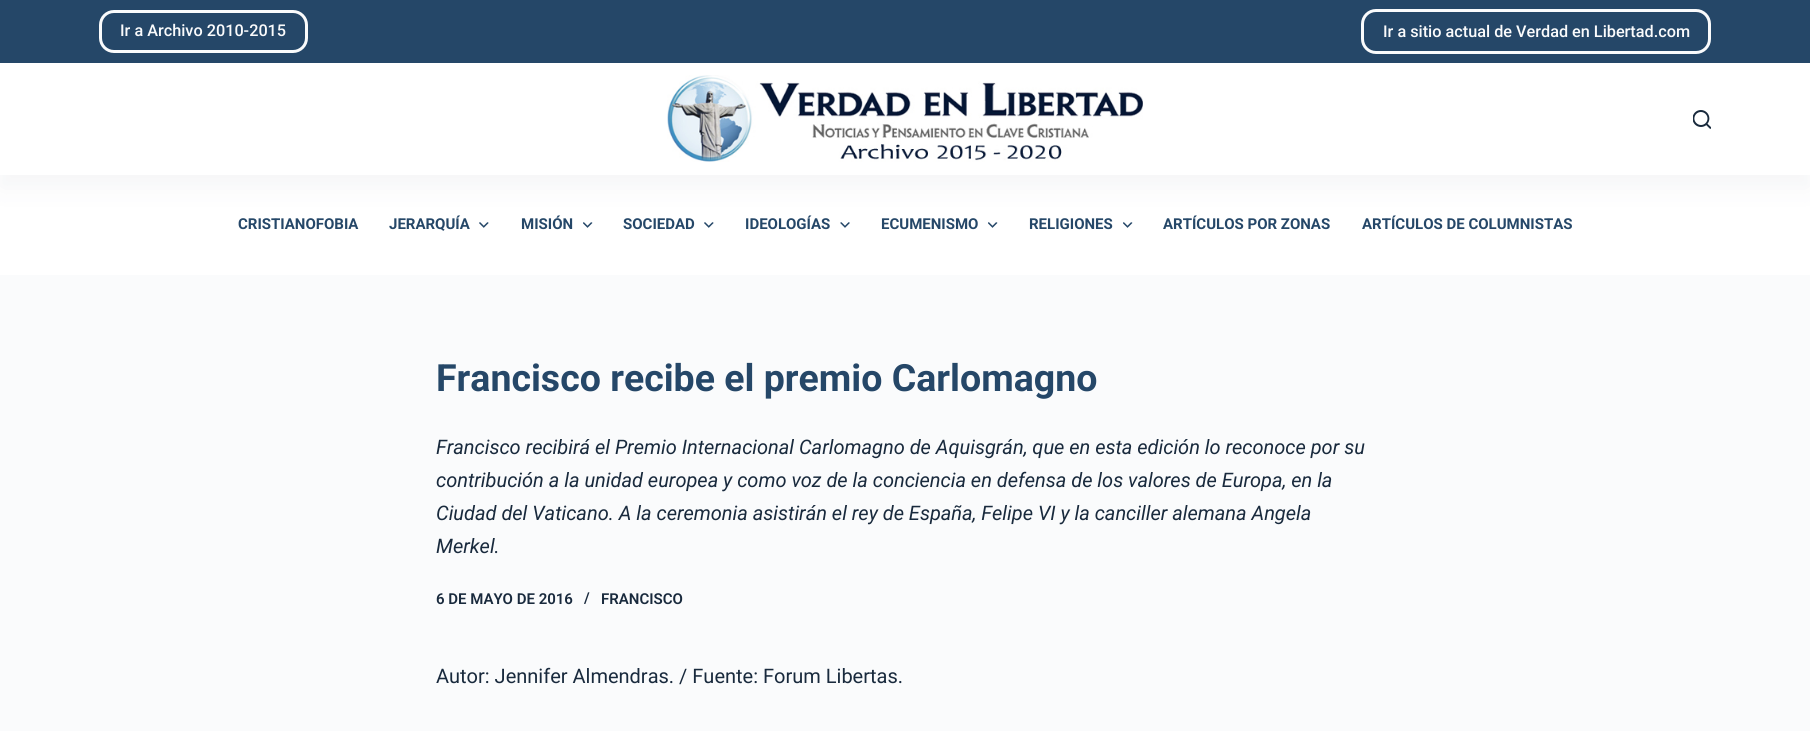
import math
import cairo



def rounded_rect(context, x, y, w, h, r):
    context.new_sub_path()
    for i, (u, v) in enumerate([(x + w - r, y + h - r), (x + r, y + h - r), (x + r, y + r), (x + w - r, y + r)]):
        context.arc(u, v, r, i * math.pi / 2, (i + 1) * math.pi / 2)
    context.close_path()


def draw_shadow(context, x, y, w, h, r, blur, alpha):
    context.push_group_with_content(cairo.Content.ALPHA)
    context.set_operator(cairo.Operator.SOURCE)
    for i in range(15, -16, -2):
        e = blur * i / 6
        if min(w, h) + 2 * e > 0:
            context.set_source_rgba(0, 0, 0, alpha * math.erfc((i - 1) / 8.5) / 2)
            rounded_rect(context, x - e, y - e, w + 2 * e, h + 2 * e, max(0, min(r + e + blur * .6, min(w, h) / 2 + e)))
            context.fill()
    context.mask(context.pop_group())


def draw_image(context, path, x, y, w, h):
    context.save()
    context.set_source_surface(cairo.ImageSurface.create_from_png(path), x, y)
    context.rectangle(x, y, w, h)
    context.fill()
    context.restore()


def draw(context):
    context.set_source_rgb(250 / 255, 251 / 255, 252 / 255)
    context.paint()
    context.set_source_rgb(1, 1, 1)
    context.rectangle(0, 175, 1810, 100)
    context.fill()
    draw_image(context, "images/3.png", 479, 222, 10, 6)
    draw_image(context, "images/4.png", 583, 222, 10, 6)
    draw_image(context, "images/3.png", 704, 222, 10, 6)
    draw_image(context, "images/5.png", 840, 222, 10, 6)
    draw_image(context, "images/4.png", 988, 222, 10, 6)
    draw_image(context, "images/4.png", 1123, 222, 10, 6)
    context.set_source_rgb(44 / 255, 62 / 255, 80 / 255)
    draw_shadow(context, 0, 75, 1810, 113, 0, 12.5, 0.05)
    context.set_source_rgb(37 / 255, 71 / 255, 104 / 255)
    context.rectangle(0, 0, 1810, 63)
    context.fill()
    rounded_rect(context, 100.5, 11.5, 206, 40, 13.5)
    context.set_source_rgb(250 / 255, 251 / 255, 252 / 255)
    context.set_line_width(3)
    context.stroke()
    rounded_rect(context, 1362.5, 10.5, 347, 42, 13.5)
    context.stroke()
    context.set_source_rgb(1, 1, 1)
    context.rectangle(0, 63, 1810, 112)
    context.fill()
    draw_image(context, "images/1.png", 667, 75, 476, 87)
    draw_image(context, "images/2.png", 1693, 110, 18, 19)
    context.select_font_face("Roboto Medium")
    context.set_font_size(16.25)
    context.set_source_rgb(250 / 255, 251 / 255, 252 / 255)
    context.move_to(120, 36)
    context.show_text("Ir a Archivo 2010-2015")
    context.move_to(1383, 37)
    context.show_text("Ir a sitio actual de Verdad en Libertad.com")
    context.select_font_face("Roboto", cairo.FontSlant.NORMAL, cairo.FontWeight.BOLD)
    context.set_font_size(15)
    context.set_source_rgb(37 / 255, 71 / 255, 104 / 255)
    context.move_to(238, 229)
    context.show_text("CRISTIANOFOBIA")
    context.move_to(389, 229)
    context.show_text("JERARQUÍA")
    context.move_to(521, 229)
    context.show_text("MISIÓN")
    context.move_to(623, 229)
    context.show_text("SOCIEDAD")
    context.move_to(745, 229)
    context.show_text("IDEOLOGÍAS")
    context.move_to(881, 229)
    context.show_text("ECUMENISMO")
    context.move_to(1029, 229)
    context.show_text("RELIGIONES")
    context.move_to(1163, 229)
    context.show_text("ARTÍCULOS POR ZONAS")
    context.move_to(1362, 229)
    context.show_text("ARTÍCULOS DE COLUMNISTAS")
    context.set_font_size(37.5)
    context.move_to(436, 391)
    context.show_text("Francisco recibe el premio Carlomagno")
    context.select_font_face("Roboto", cairo.FontSlant.ITALIC)
    context.set_font_size(20)
    context.set_source_rgb(25 / 255, 42 / 255, 61 / 255)
    context.move_to(436, 454)
    context.show_text("Francisco recibirá el Premio Internacional Carlomagno de Aquisgrán, que en esta edición lo reconoce por su")
    context.move_to(436, 487)
    context.show_text("contribución a la unidad europea y como voz de la conciencia en defensa de los valores de Europa, en la")
    context.move_to(436, 520)
    context.show_text("Ciudad del Vaticano. A la ceremonia asistirán el rey de España, Felipe VI y la canciller alemana Angela")
    context.move_to(436, 553)
    context.show_text("Merkel.")
    context.select_font_face("Roboto SemiBold")
    context.set_font_size(15)
    context.move_to(436, 604)
    context.show_text("6 DE MAYO DE 2016")
    context.move_to(584, 603)
    context.show_text("/")
    context.move_to(601, 604)
    context.show_text("FRANCISCO")
    context.select_font_face("Roboto")
    context.set_font_size(20)
    context.move_to(436, 683)
    context.show_text("Autor: Jennifer Almendras. / Fuente: Forum Libertas.")


surface = cairo.ImageSurface(cairo.Format.RGB24, 1810, 731)
context = cairo.Context(surface)
options = cairo.FontOptions()
options.set_hint_metrics(cairo.HintMetrics.OFF)
options.set_hint_style(cairo.HintStyle.NONE)
context.set_font_options(options)
context.set_miter_limit(4)
draw(context)
surface.write_to_png("out.png")
